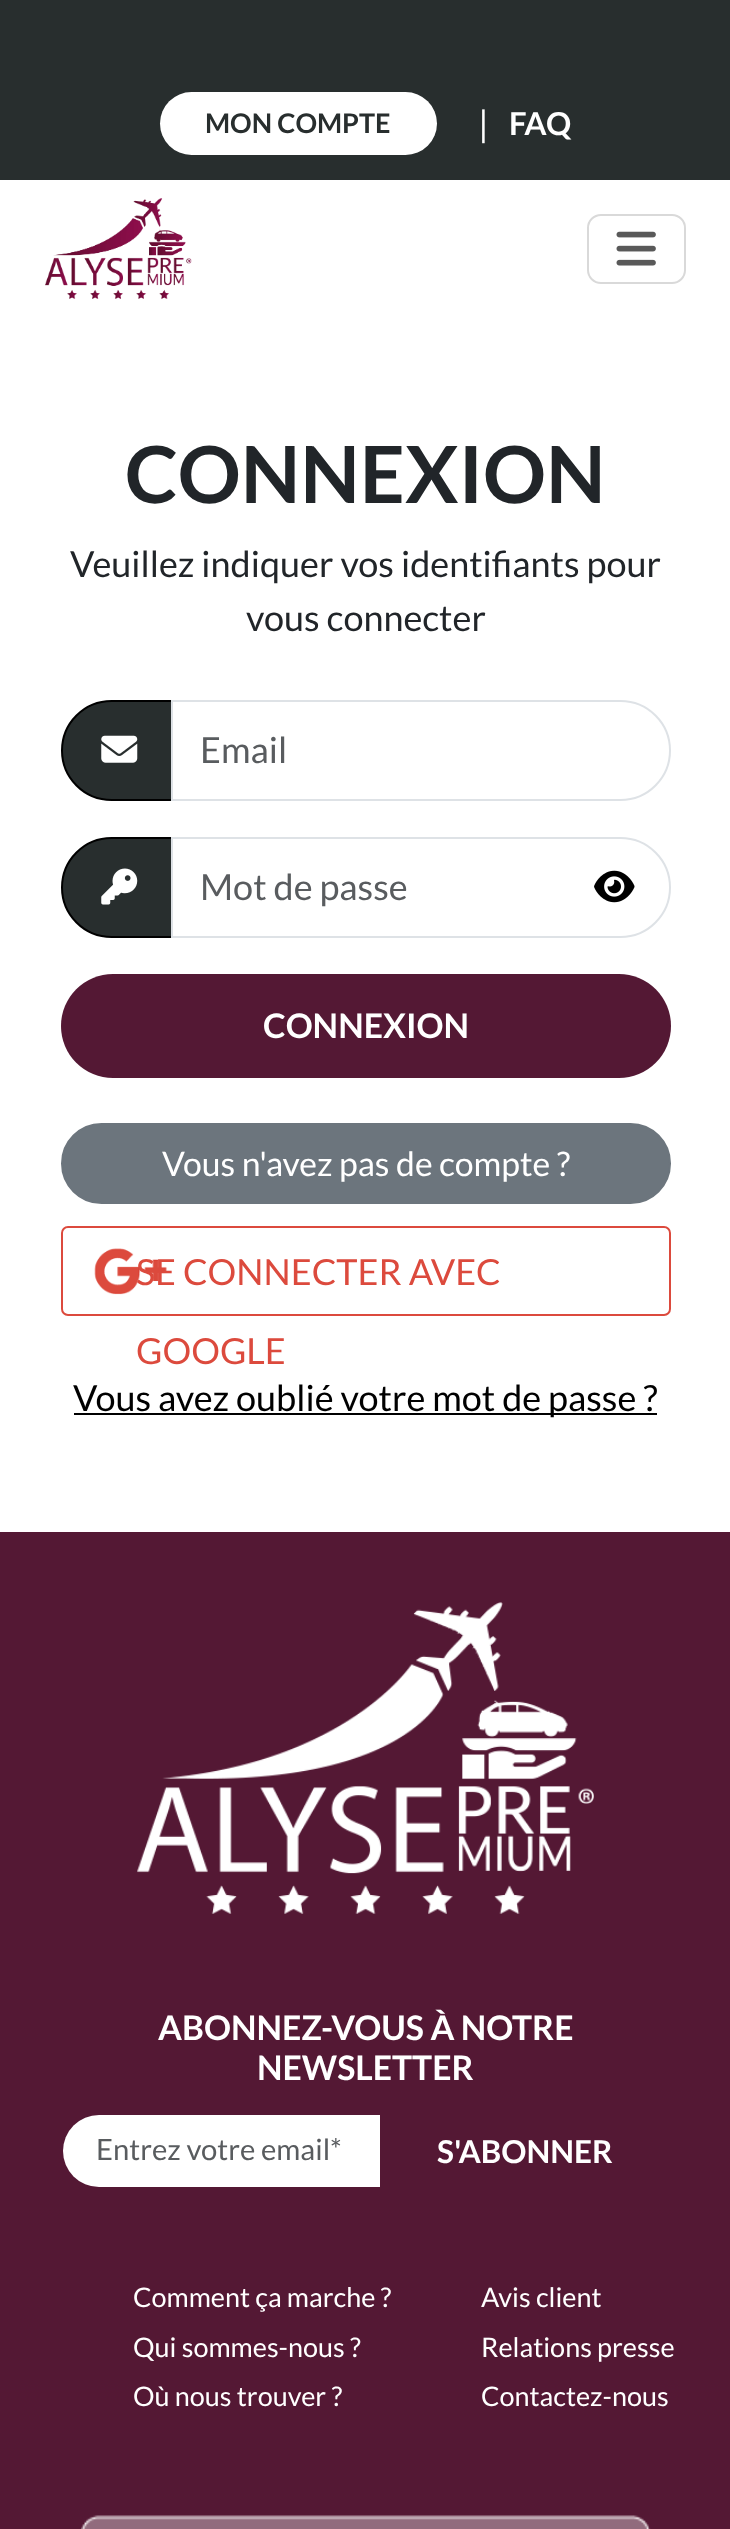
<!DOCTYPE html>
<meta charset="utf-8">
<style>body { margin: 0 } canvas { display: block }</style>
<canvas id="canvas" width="730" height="2529"></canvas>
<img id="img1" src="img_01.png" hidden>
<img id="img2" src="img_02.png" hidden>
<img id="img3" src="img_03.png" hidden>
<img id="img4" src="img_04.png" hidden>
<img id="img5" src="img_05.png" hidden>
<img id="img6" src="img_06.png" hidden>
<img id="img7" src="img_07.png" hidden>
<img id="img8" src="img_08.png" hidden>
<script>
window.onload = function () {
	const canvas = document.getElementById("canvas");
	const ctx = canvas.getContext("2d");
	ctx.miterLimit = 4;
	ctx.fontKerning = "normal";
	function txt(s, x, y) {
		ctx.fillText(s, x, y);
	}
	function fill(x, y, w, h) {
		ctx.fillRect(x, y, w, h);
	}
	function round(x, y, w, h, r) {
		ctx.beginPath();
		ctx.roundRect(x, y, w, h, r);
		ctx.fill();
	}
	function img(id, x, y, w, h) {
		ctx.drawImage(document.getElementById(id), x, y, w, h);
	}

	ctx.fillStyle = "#FFFFFF";
	fill(0, 0, 730, 2529);
	ctx.fillStyle = "#282E2E";
	fill(0, 0, 730, 180);
	ctx.fillStyle = "#FFFFFF";
	round(160, 92, 277, 63, 31.5);
	img("img1", 45, 198, 147, 101);
	ctx.beginPath();
	ctx.roundRect(588, 215, 97, 68, 13);
	ctx.strokeStyle = "#D9D9D9";
	ctx.lineWidth = 2;
	ctx.stroke();
	img("img2", 616, 231, 40, 35);
	ctx.fillStyle = "#282E2E";
	ctx.beginPath();
	ctx.roundRect(62, 701, 110, 99, [49.5, 0, 0, 49.5]);
	ctx.fill();
	ctx.strokeStyle = "#000000";
	ctx.stroke();
	img("img3", 101, 735, 37, 28);
	ctx.beginPath();
	ctx.roundRect(172, 701, 498, 99, [0, 49.5, 49.5, 0]);
	ctx.strokeStyle = "#DEE2E6";
	ctx.stroke();
	ctx.beginPath();
	ctx.roundRect(62, 838, 110, 99, [49.5, 0, 0, 49.5]);
	ctx.fill();
	ctx.strokeStyle = "#000000";
	ctx.stroke();
	img("img4", 101, 868, 37, 37);
	ctx.beginPath();
	ctx.roundRect(172, 838, 498, 99, [0, 49.5, 49.5, 0]);
	ctx.strokeStyle = "#DEE2E6";
	ctx.stroke();
	img("img5", 594, 870, 41, 33);
	ctx.fillStyle = "#541834";
	round(61, 974, 610, 104, 52);
	ctx.fillStyle = "#6C757D";
	ctx.beginPath();
	ctx.roundRect(62, 1124, 608, 79, 39.5);
	ctx.fill();
	ctx.strokeStyle = "#6C757D";
	ctx.stroke();
	img("img6", 94, 1248, 73, 47);
	ctx.beginPath();
	ctx.roundRect(62, 1227, 608, 88, 6);
	ctx.strokeStyle = "#DC4A3D";
	ctx.stroke();
	ctx.fillStyle = "#000000";
	fill(74, 1413, 583, 2);
	ctx.fillStyle = "#541834";
	fill(0, 1532, 730, 997);
	img("img7", 137, 1602, 457, 312);
	ctx.fillStyle = "#FFFFFF";
	ctx.beginPath();
	ctx.roundRect(63, 2115, 317, 72, [36, 0, 0, 36]);
	ctx.fill();
	img("img8", 81, 2515, 570, 14);
	ctx.font = "bold 27px Lato";
	ctx.fillStyle = "#282E2E";
	txt("MON COMPTE", 205, 133);
	ctx.font = "36px Lato";
	ctx.fillStyle = "#FFFFFF";
	txt("|", 478, 137);
	ctx.font = "bold 31.5px Lato";
	txt("FAQ", 509, 135);
	ctx.font = "bold 78.75px Lato";
	ctx.fillStyle = "#212529";
	txt("CONNEXION", 125, 503);
	ctx.font = "36px Lato";
	txt("Veuillez indiquer vos identifiants pour", 70, 577);
	txt("vous connecter", 246, 631);
	ctx.fillStyle = "#595C5F";
	txt("Email", 200, 763);
	txt("Mot de passe", 200, 900);
	ctx.font = "bold 33.75px Lato";
	ctx.fillStyle = "#FFFFFF";
	txt("CONNEXION", 263, 1038);
	ctx.font = "33.75px Lato";
	txt("Vous n'avez pas de compte ?", 162, 1176);
	ctx.font = "36px Lato";
	ctx.fillStyle = "#DC4A3D";
	txt("SE CONNECTER AVEC", 136, 1285);
	txt("GOOGLE", 136, 1364);
	ctx.fillStyle = "#000000";
	txt("Vous avez oublié votre mot de passe ?", 73, 1411);
	ctx.font = "bold 33.75px Lato";
	ctx.fillStyle = "#FFFFFF";
	txt("ABONNEZ-VOUS À NOTRE", 158, 2040);
	txt("NEWSLETTER", 257, 2080);
	ctx.font = "29.25px Lato";
	ctx.fillStyle = "#595C5F";
	txt("Entrez votre email*", 96, 2160);
	ctx.font = "bold 31.5px Lato";
	ctx.fillStyle = "#FFFFFF";
	txt("S'ABONNER", 437, 2163);
	ctx.font = "27px Lato";
	txt("Comment ça marche ?", 133, 2307);
	txt("Qui sommes-nous ?", 133, 2357);
	txt("Où nous trouver ?", 133, 2406);
	txt("Avis client", 481, 2307);
	txt("Relations presse", 481, 2357);
	txt("Contactez-nous", 481, 2406);
};
</script>
